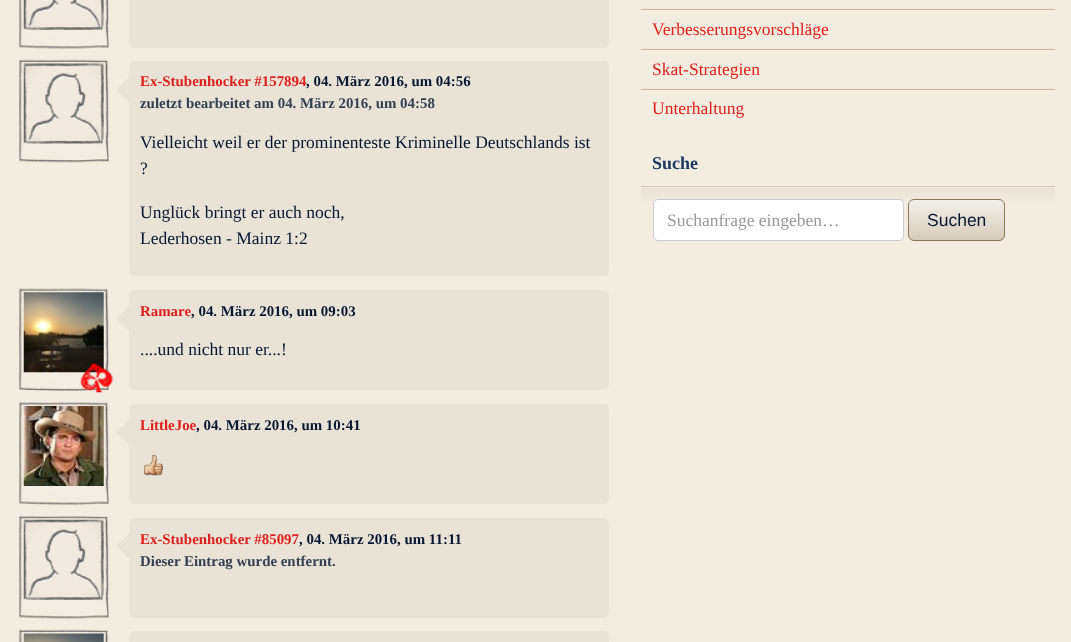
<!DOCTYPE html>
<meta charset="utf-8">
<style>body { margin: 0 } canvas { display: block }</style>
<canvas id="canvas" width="1071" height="642"></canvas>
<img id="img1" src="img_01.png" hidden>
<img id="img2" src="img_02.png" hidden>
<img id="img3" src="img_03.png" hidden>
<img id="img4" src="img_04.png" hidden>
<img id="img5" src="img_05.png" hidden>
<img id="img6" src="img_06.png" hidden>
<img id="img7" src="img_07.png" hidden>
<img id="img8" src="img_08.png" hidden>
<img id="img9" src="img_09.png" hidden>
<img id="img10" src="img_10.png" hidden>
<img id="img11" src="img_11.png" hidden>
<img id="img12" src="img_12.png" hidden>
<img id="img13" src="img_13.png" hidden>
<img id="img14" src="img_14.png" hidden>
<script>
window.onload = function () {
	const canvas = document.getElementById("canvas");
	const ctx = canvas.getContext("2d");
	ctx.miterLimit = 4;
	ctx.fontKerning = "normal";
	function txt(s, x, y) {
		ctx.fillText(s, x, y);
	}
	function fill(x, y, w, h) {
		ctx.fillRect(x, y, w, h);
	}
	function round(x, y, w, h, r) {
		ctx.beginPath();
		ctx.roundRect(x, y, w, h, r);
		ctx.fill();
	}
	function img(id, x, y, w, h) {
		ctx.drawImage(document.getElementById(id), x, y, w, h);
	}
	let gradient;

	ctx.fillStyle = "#F2ECE1";
	fill(0, 0, 1071, 642);
	img("img1", 19, 0, 90, 49);
	img("img2", 23, 0, 81, 30);
	ctx.fillStyle = "#E8E2D7";
	round(129, -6, 480, 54, 6);
	img("img3", 19, 59, 90, 104);
	img("img4", 23, 63, 81, 81);
	round(129, 61, 480, 215, 6);
	ctx.beginPath();
	ctx.moveTo(129, 77.5);
	ctx.lineTo(129, 102.5);
	ctx.lineTo(116, 90);
	ctx.closePath();
	ctx.fill();
	img("img5", 19, 288, 90, 103);
	img("img6", 23, 292, 81, 81);
	img("img7", 80, 363, 34, 30);
	round(129, 290, 480, 100, 6);
	ctx.beginPath();
	ctx.moveTo(129, 306);
	ctx.lineTo(129, 331);
	ctx.lineTo(116, 319);
	ctx.closePath();
	ctx.fill();
	img("img8", 19, 402, 90, 103);
	img("img9", 23, 406, 81, 80);
	round(129, 404, 480, 100, 6);
	ctx.beginPath();
	ctx.moveTo(129, 420);
	ctx.lineTo(129, 445);
	ctx.lineTo(116, 432.5);
	ctx.closePath();
	ctx.fill();
	img("img10", 144, 455, 19, 21);
	img("img11", 19, 516, 90, 103);
	img("img12", 23, 519, 81, 81);
	round(129, 518, 480, 100, 6);
	ctx.beginPath();
	ctx.moveTo(129, 534);
	ctx.lineTo(129, 559);
	ctx.lineTo(116, 546);
	ctx.closePath();
	ctx.fill();
	img("img13", 19, 629, 90, 13);
	img("img14", 23, 633, 81, 9);
	round(129, 631, 480, 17, 6);
	ctx.fillStyle = "#BFB19A";
	fill(641, 9, 414, 1);
	fill(641, 49, 414, 1);
	fill(641, 89, 414, 1);
	ctx.fillStyle = "#D3C9B6";
	fill(641, 186, 414, 1);
	gradient = ctx.createLinearGradient(848, 187, 848, 251);
	gradient.addColorStop(0, "#E8E2D7");
	gradient.addColorStop(0.3, "#F2ECE1");
	ctx.fillStyle = gradient;
	fill(641, 188, 414, 13);
	ctx.fillStyle = "#FFFFFF";
	ctx.beginPath();
	ctx.roundRect(653.5, 199.5, 250, 41, 4.5);
	ctx.fill();
	ctx.strokeStyle = "#CCCCCC";
	ctx.stroke();
	ctx.save();
	ctx.beginPath();
	ctx.roundRect(908, 199, 97, 42, 6);
	ctx.clip();
	gradient = ctx.createLinearGradient(956, 200, 956, 240);
	gradient.addColorStop(0, "#F3F0EB");
	gradient.addColorStop(1, "#D6CCBB");
	ctx.fillStyle = gradient;
	fill(908, 200, 97, 40);
	ctx.restore();
	ctx.beginPath();
	ctx.roundRect(908.5, 199.5, 96, 41, 5.5);
	ctx.strokeStyle = "#8C7653";
	ctx.stroke();
	ctx.font = "bold 14.9px Liberation Serif";
	ctx.fillStyle = "#DE1F1C";
	txt("Ex-Stubenhocker #157894", 140, 86);
	ctx.fillStyle = "#081731";
	txt(", 04. März 2016, um 04:56", 306, 86);
	ctx.fillStyle = "#354052";
	txt("zuletzt bearbeitet am 04. März 2016, um 04:58", 140, 108);
	ctx.font = "17.5px Liberation Serif";
	ctx.fillStyle = "#081731";
	txt("Vielleicht weil er der prominenteste Kriminelle Deutschlands ist", 140, 148);
	txt("?", 140, 174);
	txt("Unglück bringt er auch noch,", 140, 218);
	txt("Lederhosen - Mainz 1:2", 140, 244);
	ctx.font = "bold 14.9px Liberation Serif";
	ctx.fillStyle = "#DE1F1C";
	txt("Ramare", 140, 316);
	ctx.fillStyle = "#081731";
	txt(", 04. März 2016, um 09:03", 191, 316);
	ctx.font = "17.5px Liberation Serif";
	txt("....und nicht nur er...!", 140, 355);
	ctx.font = "bold 14.9px Liberation Serif";
	ctx.fillStyle = "#DE1F1C";
	txt("LittleJoe", 140, 430);
	ctx.fillStyle = "#081731";
	txt(", 04. März 2016, um 10:41", 196, 430);
	ctx.fillStyle = "#DE1F1C";
	txt("Ex-Stubenhocker #85097", 140, 544);
	ctx.fillStyle = "#081731";
	txt(", 04. März 2016, um 11:11", 299, 544);
	ctx.fillStyle = "#354052";
	txt("Dieser Eintrag wurde entfernt.", 140, 566);
	ctx.font = "17.5px Liberation Serif";
	ctx.fillStyle = "#DE1F1C";
	txt("Verbesserungsvorschläge", 652, 35);
	txt("Skat-Strategien", 652, 75);
	txt("Unterhaltung", 652, 114);
	ctx.font = "bold 18px Liberation Serif";
	ctx.fillStyle = "#1D3961";
	txt("Suche", 652, 169);
	ctx.font = "17.5px Liberation Serif";
	ctx.fillStyle = "#999999";
	txt("Suchanfrage eingeben…", 667, 226);
	ctx.font = "17.5px Liberation Sans";
	ctx.fillStyle = "#081731";
	txt("Suchen", 927, 226);
};
</script>
